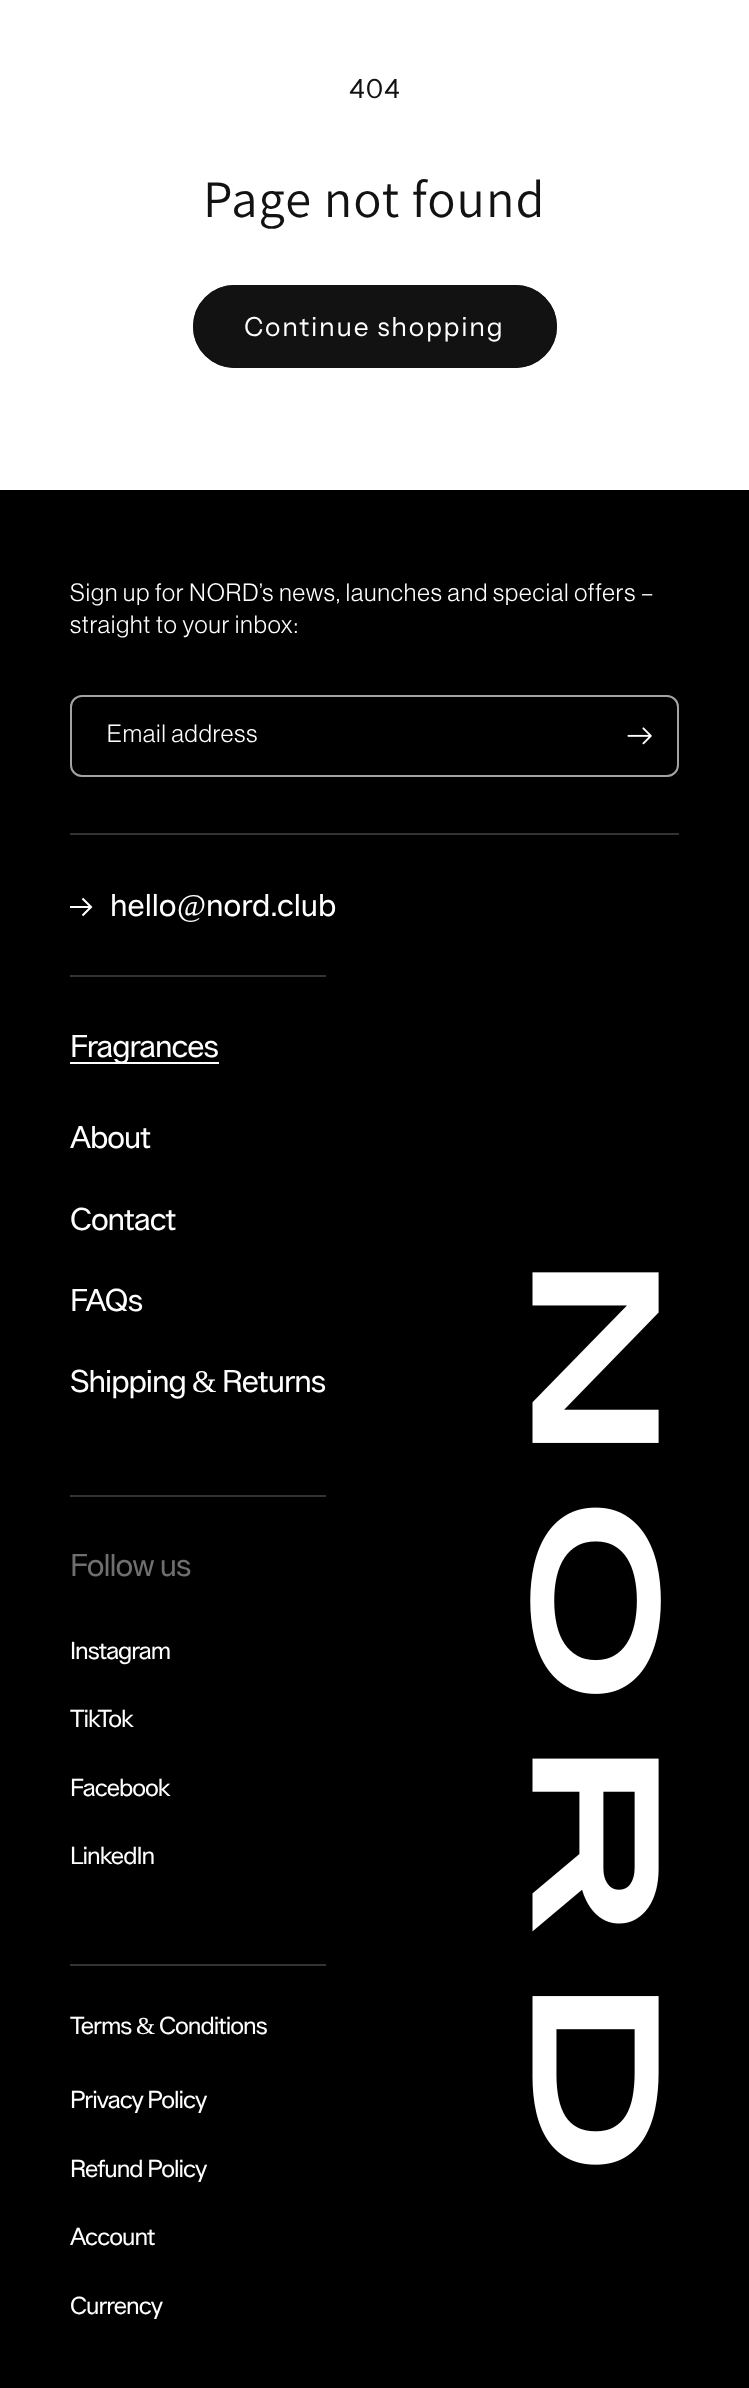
<!DOCTYPE html>
<meta charset="utf-8">
<style>body { margin: 0 } canvas { display: block }</style>
<canvas id="canvas" width="749" height="2388"></canvas>
<img id="img1" src="img_01.png" hidden>
<img id="img2" src="img_02.png" hidden>
<script>
window.onload = function () {
	const canvas = document.getElementById("canvas");
	const ctx = canvas.getContext("2d");
	ctx.miterLimit = 4;
	ctx.fontKerning = "normal";
	function txt(s, x, y) {
		ctx.fillText(s, x, y);
	}
	function fill(x, y, w, h) {
		ctx.fillRect(x, y, w, h);
	}
	function round(x, y, w, h, r) {
		ctx.beginPath();
		ctx.roundRect(x, y, w, h, r);
		ctx.fill();
	}
	function img(id, x, y, w, h) {
		ctx.drawImage(document.getElementById(id), x, y, w, h);
	}

	ctx.fillStyle = "#FFFFFF";
	fill(0, 0, 749, 2388);
	ctx.fillStyle = "#121212";
	round(193, 285, 364, 83, 41.5);
	ctx.beginPath();
	ctx.roundRect(194, 286, 362, 81, 40.5);
	ctx.strokeStyle = "#121212";
	ctx.lineWidth = 2;
	ctx.stroke();
	ctx.fillStyle = "#000000";
	fill(0, 490, 749, 1898);
	ctx.beginPath();
	ctx.roundRect(71, 696, 607, 80, 11);
	ctx.strokeStyle = "#333333";
	ctx.stroke();
	round(72, 697, 605, 78, 11);
	ctx.beginPath();
	ctx.roundRect(71, 696, 607, 80, 11);
	ctx.strokeStyle = "rgba(255, 255, 255, 0.55)";
	ctx.stroke();
	img("img1", 627, 727, 25, 18);
	ctx.fillStyle = "#333333";
	fill(70, 833, 609, 2);
	ctx.fillStyle = "#FFFFFF";
	fill(70, 906, 21, 2);
	ctx.beginPath();
	ctx.moveTo(82.5, 898.5);
	ctx.lineTo(91, 907);
	ctx.lineTo(82.5, 915.5);
	ctx.strokeStyle = "#FFFFFF";
	ctx.lineWidth = 2.1;
	ctx.stroke();
	ctx.fillStyle = "#333333";
	fill(70, 975, 256, 2);
	ctx.fillStyle = "#FFFFFF";
	fill(70, 1062, 149, 2);
	ctx.fillStyle = "#333333";
	fill(70, 1495, 256, 2);
	fill(70, 1964, 256, 2);
	img("img2", 530, 1272, 131, 893);
	ctx.letterSpacing = "1.05px";
	ctx.font = "26.25px Instrument Sans";
	ctx.fillStyle = "#121212";
	txt("404", 349, 98);
	ctx.font = "52.5px Assistant";
	txt("Page not found", 203, 217);
	ctx.letterSpacing = "1.75px";
	ctx.font = "26.25px Instrument Sans";
	ctx.fillStyle = "#FFFFFF";
	txt("Continue shopping", 244, 336);
	ctx.letterSpacing = "1.05px";
	ctx.font = "300 24.5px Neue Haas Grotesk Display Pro";
	txt("Sign up for NORD’s news, launches and special offers –", 70, 601);
	txt("straight to your inbox:", 70, 633);
	txt("Email address", 107, 742);
	ctx.letterSpacing = "0px";
	ctx.font = "31.5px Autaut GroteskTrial";
	txt("hello", 110, 916);
	ctx.font = "31.5px Liberation Serif";
	txt("@", 177, 916);
	ctx.font = "31.5px Autaut GroteskTrial";
	txt("nord.club", 206, 916);
	ctx.letterSpacing = "-1px";
	txt("Fragrances", 70, 1057);
	txt("About", 70, 1148);
	txt("Contact", 70, 1230);
	txt("FAQs", 70, 1311);
	txt("Shipping", 70, 1392);
	ctx.font = "31.5px Liberation Serif";
	txt("&", 192, 1392);
	ctx.font = "31.5px Autaut GroteskTrial";
	txt("Returns", 222, 1392);
	ctx.fillStyle = "#6F6F6F";
	txt("Follow us", 70, 1576);
	ctx.font = "24.5px Autaut GroteskTrial";
	ctx.fillStyle = "#FFFFFF";
	txt("Instagram", 70, 1659);
	txt("TikTok", 70, 1727);
	txt("Facebook", 70, 1796);
	txt("LinkedIn", 70, 1864);
	txt("Terms", 70, 2034);
	ctx.font = "24.5px Liberation Serif";
	txt("&", 136, 2034);
	ctx.font = "24.5px Autaut GroteskTrial";
	txt("Conditions", 159, 2034);
	txt("Privacy Policy", 70, 2108);
	txt("Refund Policy", 70, 2177);
	txt("Account", 70, 2245);
	txt("Currency", 70, 2314);
};
</script>
